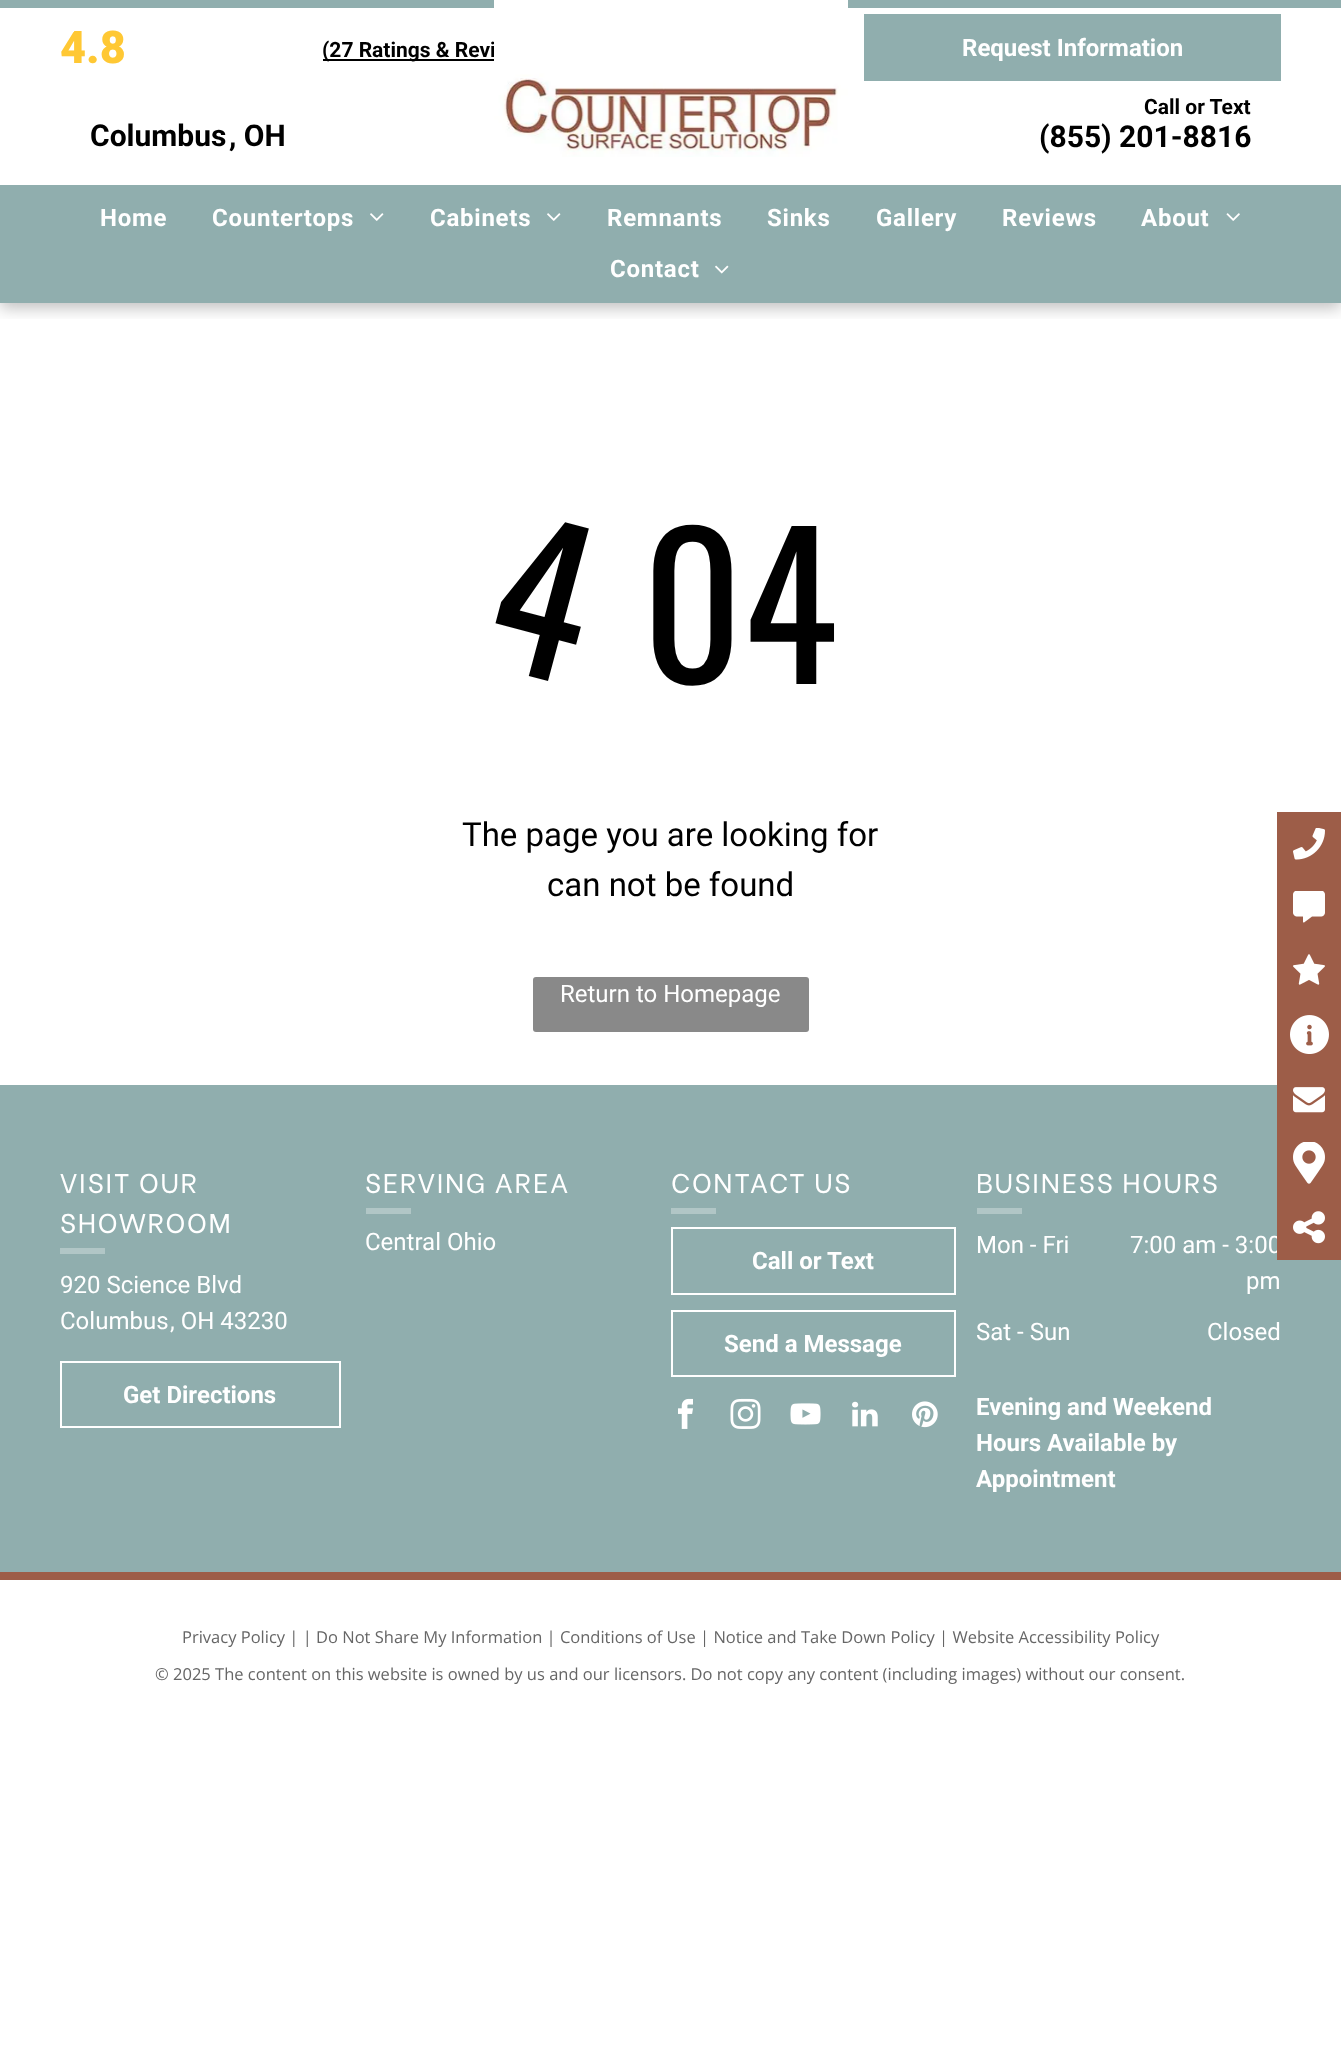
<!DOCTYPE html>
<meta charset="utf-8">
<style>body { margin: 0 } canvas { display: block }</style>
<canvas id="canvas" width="1341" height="2070"></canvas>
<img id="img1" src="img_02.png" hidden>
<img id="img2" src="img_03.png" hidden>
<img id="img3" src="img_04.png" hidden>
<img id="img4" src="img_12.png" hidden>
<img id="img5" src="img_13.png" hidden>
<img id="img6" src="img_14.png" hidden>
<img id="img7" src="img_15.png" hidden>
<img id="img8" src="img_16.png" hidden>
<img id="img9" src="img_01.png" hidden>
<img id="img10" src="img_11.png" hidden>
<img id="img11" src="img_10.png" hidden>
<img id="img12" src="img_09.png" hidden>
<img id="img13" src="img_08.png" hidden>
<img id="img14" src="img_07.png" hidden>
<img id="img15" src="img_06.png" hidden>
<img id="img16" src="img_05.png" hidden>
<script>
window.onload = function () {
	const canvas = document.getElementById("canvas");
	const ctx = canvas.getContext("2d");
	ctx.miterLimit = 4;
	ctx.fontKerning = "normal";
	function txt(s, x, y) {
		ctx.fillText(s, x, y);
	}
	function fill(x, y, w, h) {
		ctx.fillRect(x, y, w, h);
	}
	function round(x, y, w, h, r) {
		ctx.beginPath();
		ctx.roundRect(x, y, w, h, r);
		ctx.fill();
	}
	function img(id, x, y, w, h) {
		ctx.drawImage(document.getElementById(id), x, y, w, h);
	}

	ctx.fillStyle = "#FFFFFF";
	fill(0, 0, 1341, 2070);
	ctx.save();
	ctx.beginPath();
	ctx.rect(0, 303, 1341, 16);
	ctx.clip();
	ctx.fillStyle = "rgba(0, 0, 0, 0.25)";
	ctx.filter = "blur(8px)";
	ctx.beginPath();
	ctx.rect(0, 5, 1341, 303);
	ctx.fill();
	ctx.filter = "none";
	ctx.restore();
	ctx.fillStyle = "#90AEAE";
	fill(0, 0, 1341, 8);
	ctx.fillStyle = "#000000";
	fill(323, 59, 171, 2);
	ctx.fillStyle = "#90AEAE";
	fill(864, 14, 417, 67);
	fill(0, 185, 1341, 118);
	img("img1", 370, 213, 14, 8);
	img("img1", 547, 213, 14, 8);
	img("img2", 1226, 213, 14, 8);
	img("img3", 715, 265, 14, 9);
	ctx.fillStyle = "#898989";
	round(533, 977, 276, 55, 3);
	ctx.fillStyle = "#90AEAE";
	fill(0, 1085, 1341, 487);
	ctx.fillStyle = "#9D5D48";
	fill(0, 1572, 1341, 8);
	ctx.fillStyle = "#B1C6C6";
	fill(60, 1248, 45, 6);
	ctx.strokeStyle = "#FFFFFF";
	ctx.lineWidth = 2;
	ctx.strokeRect(61, 1362, 279, 65);
	fill(366, 1208, 45, 6);
	fill(671, 1208, 45, 6);
	ctx.strokeRect(672, 1228, 283, 66);
	ctx.strokeRect(672, 1311, 283, 65);
	img("img4", 678, 1398, 15, 31);
	img("img5", 730, 1398, 31, 31);
	img("img6", 790, 1403, 31, 22);
	img("img7", 852, 1401, 26, 26);
	img("img8", 912, 1401, 26, 27);
	fill(977, 1208, 45, 6);
	ctx.font = "900 45px Roboto";
	ctx.fillStyle = "#FFC834";
	txt("4.8", 60, 63);
	ctx.font = "bold 21px Roboto";
	ctx.fillStyle = "#000000";
	txt("(27 Ratings & Revi", 322, 57);
	ctx.font = "bold 24px Roboto";
	ctx.fillStyle = "#FFFFFF";
	txt("Request Information", 962, 56);
	ctx.font = "bold 30px Roboto";
	ctx.fillStyle = "#000000";
	txt("Columbus", 90, 146);
	txt(", OH", 229, 146);
	img("img9", 494, 0, 354, 157);
	ctx.font = "bold 21px Roboto";
	txt("Call or Text", 1144, 114);
	ctx.font = "bold 30px Roboto";
	txt("(855) 201-8816", 1039, 147);
	ctx.letterSpacing = "0.75px";
	ctx.font = "bold 24px Roboto";
	ctx.fillStyle = "#FFFFFF";
	txt("Home", 100, 226);
	txt("Countertops", 212, 226);
	txt("Cabinets", 430, 226);
	txt("Remnants", 607, 226);
	txt("Sinks", 767, 226);
	txt("Gallery", 876, 226);
	txt("Reviews", 1002, 226);
	txt("About", 1141, 226);
	txt("Contact", 610, 277);
	ctx.letterSpacing = "0px";
	ctx.font = "195px Oswald";
	ctx.fillStyle = "#000000";
	ctx.save();
	ctx.translate(477, 662);
	ctx.rotate(15 * Math.PI / 180);
	ctx.fillText("4", 0, 0);
	ctx.restore();
	txt("04", 642, 684);
	ctx.font = "33px Roboto";
	txt("The page you are looking for", 462, 846);
	txt("can not be found", 547, 896);
	ctx.font = "24px Roboto";
	ctx.fillStyle = "#FFFFFF";
	txt("Return to Homepage", 560, 1002);
	ctx.letterSpacing = "1.6px";
	ctx.font = "27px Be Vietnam";
	txt("VISIT OUR", 60, 1193);
	txt("SHOWROOM", 60, 1233);
	ctx.letterSpacing = "0px";
	ctx.font = "24px Roboto";
	txt("920 Science Blvd", 60, 1293);
	txt("Columbus", 60, 1329);
	txt(", OH 43230", 170, 1329);
	ctx.font = "bold 24px Roboto";
	txt("Get Directions", 123, 1403);
	ctx.letterSpacing = "1.6px";
	ctx.font = "27px Be Vietnam";
	txt("SERVING AREA", 365, 1193);
	ctx.letterSpacing = "0px";
	ctx.font = "24px Roboto";
	txt("Central Ohio", 365, 1250);
	ctx.letterSpacing = "1.6px";
	ctx.font = "27px Be Vietnam";
	txt("CONTACT US", 671, 1193);
	ctx.letterSpacing = "0px";
	ctx.font = "bold 24px Roboto";
	txt("Call or Text", 752, 1269);
	txt("Send a Message", 724, 1352);
	ctx.letterSpacing = "1.6px";
	ctx.font = "27px Be Vietnam";
	txt("BUSINESS HOURS", 976, 1193);
	ctx.letterSpacing = "0px";
	ctx.font = "24px Roboto";
	txt("Mon - Fri", 976, 1253);
	txt("7:00 am - 3:00", 1130, 1253);
	ctx.fillStyle = "#9D5D48";
	fill(1277, 812, 64, 448);
	img("img10", 1293, 1211, 32, 33);
	img("img11", 1293, 1142, 32, 42);
	img("img12", 1293, 1087, 32, 26);
	img("img13", 1290, 1015, 39, 39);
	img("img14", 1293, 954, 32, 31);
	img("img15", 1293, 891, 32, 32);
	img("img16", 1293, 828, 32, 32);
	ctx.fillStyle = "#FFFFFF";
	txt("pm", 1246, 1289);
	txt("Sat - Sun", 976, 1340);
	txt("Closed", 1207, 1340);
	ctx.font = "bold 24px Roboto";
	txt("Evening and Weekend", 976, 1415);
	txt("Hours Available by", 976, 1451);
	txt("Appointment", 976, 1487);
	ctx.font = "16.5px Open Sans";
	ctx.fillStyle = "#666666";
	txt("Privacy Policy | | Do Not Share My Information | Conditions of Use | Notice and Take Down Policy | Website Accessibility Policy", 182, 1643);
	txt("© 2025 The content on this website is owned by us and our licensors. Do not copy any content (including images) without our consent.", 155, 1680);
};
</script>
